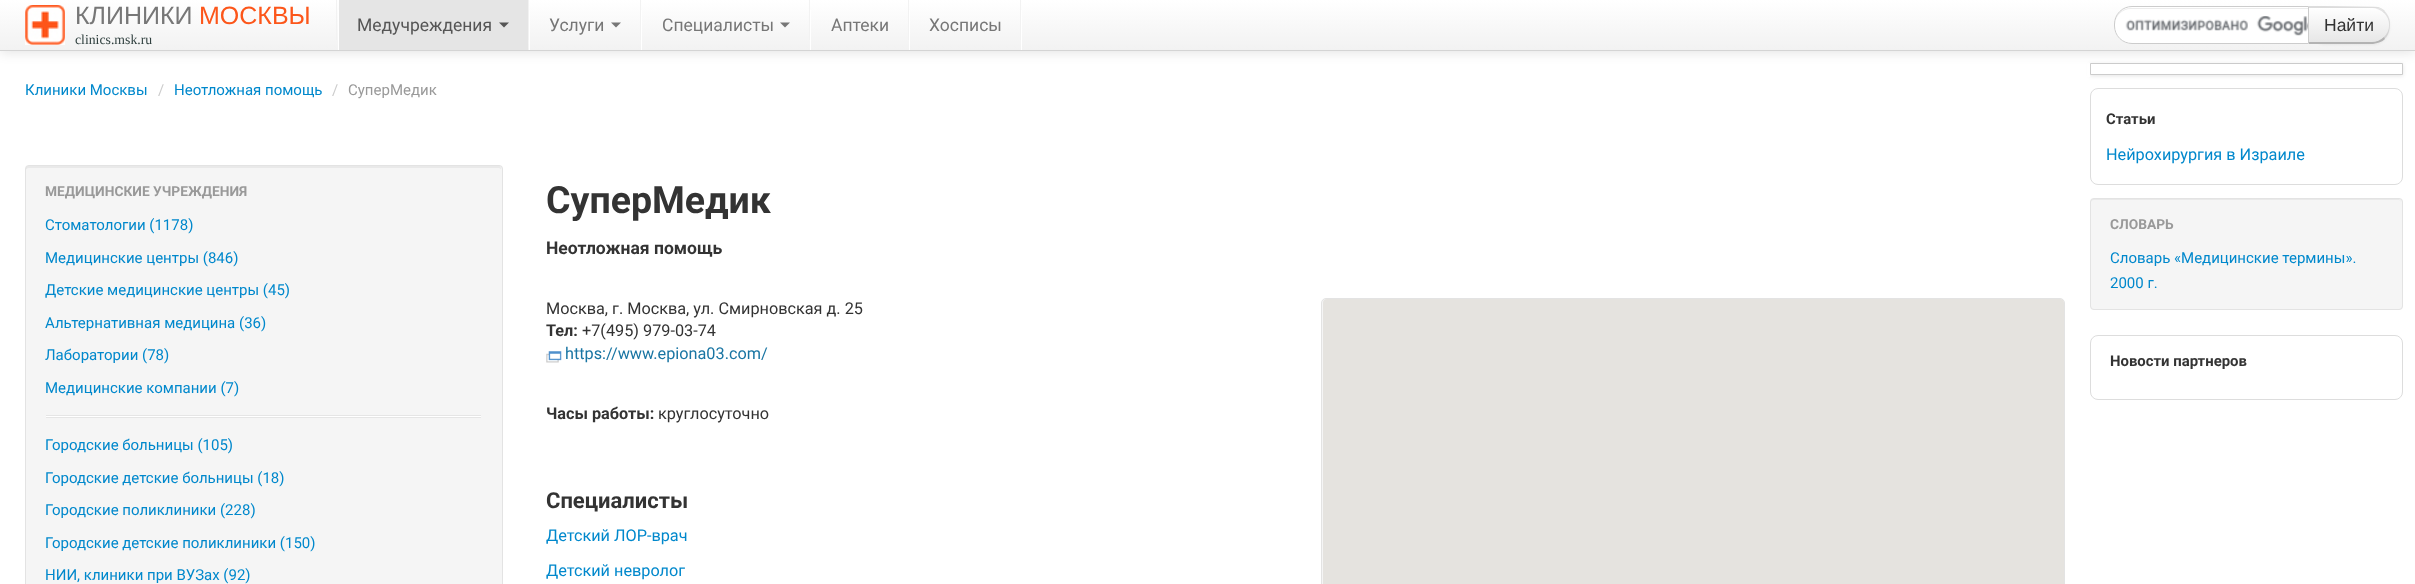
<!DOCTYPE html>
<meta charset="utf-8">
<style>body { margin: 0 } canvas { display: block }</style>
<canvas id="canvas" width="2415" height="584"></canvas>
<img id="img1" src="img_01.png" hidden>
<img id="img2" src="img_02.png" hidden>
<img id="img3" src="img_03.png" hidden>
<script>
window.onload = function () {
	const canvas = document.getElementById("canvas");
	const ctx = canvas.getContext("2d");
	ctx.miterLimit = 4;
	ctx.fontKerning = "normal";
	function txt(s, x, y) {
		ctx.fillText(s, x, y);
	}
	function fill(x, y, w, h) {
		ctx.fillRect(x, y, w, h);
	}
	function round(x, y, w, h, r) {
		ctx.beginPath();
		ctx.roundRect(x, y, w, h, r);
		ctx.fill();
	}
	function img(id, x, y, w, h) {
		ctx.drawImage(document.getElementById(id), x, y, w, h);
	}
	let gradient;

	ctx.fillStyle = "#FFFFFF";
	fill(0, 0, 2415, 584);
	ctx.fillStyle = "rgba(0, 0, 0, 0.1)";
	ctx.filter = "blur(2px)";
	ctx.beginPath();
	ctx.rect(2090, 64, 313, 12);
	ctx.fill();
	ctx.filter = "none";
	ctx.fillStyle = "#FFFFFF";
	fill(2087, 63, 3, 14);
	ctx.beginPath();
	ctx.rect(2090.5, 63.5, 312, 11);
	ctx.fill();
	ctx.strokeStyle = "#CCCCCC";
	ctx.stroke();
	ctx.fillStyle = "rgba(0, 0, 0, 0.1)";
	ctx.filter = "blur(6px)";
	ctx.beginPath();
	ctx.rect(0, 1, 2415, 52);
	ctx.fill();
	ctx.filter = "none";
	gradient = ctx.createLinearGradient(1208, 0, 1208, 50);
	gradient.addColorStop(0, "#FFFFFF");
	gradient.addColorStop(1, "#F2F2F2");
	ctx.fillStyle = gradient;
	fill(0, 0, 2415, 50);
	ctx.fillStyle = "#D4D4D4";
	fill(0, 50, 2415, 1);
	img("img1", 25, 5, 40, 40);
	ctx.fillStyle = "#FFFFFF";
	fill(338, 10, 1, 40);
	ctx.fillStyle = "#F2F2F2";
	fill(336, 0, 1, 40);
	ctx.fillStyle = "#E5E5E5";
	fill(339, 0, 189, 50);
	ctx.fillStyle = "#555555";
	ctx.beginPath();
	ctx.moveTo(499, 22.5);
	ctx.lineTo(509, 22.5);
	ctx.lineTo(504, 27.5);
	ctx.closePath();
	ctx.fill();
	ctx.fillStyle = "#FFFFFF";
	fill(529, 10, 1, 40);
	ctx.fillStyle = "#F2F2F2";
	fill(528, 0, 1, 40);
	ctx.fillStyle = "#777777";
	ctx.beginPath();
	ctx.moveTo(611, 22.5);
	ctx.lineTo(621, 22.5);
	ctx.lineTo(616, 27.5);
	ctx.closePath();
	ctx.fill();
	ctx.fillStyle = "#FFFFFF";
	fill(641, 10, 1, 40);
	ctx.fillStyle = "#F2F2F2";
	fill(640, 0, 1, 40);
	ctx.fillStyle = "#777777";
	ctx.beginPath();
	ctx.moveTo(780, 22.5);
	ctx.lineTo(790, 22.5);
	ctx.lineTo(785, 27.5);
	ctx.closePath();
	ctx.fill();
	ctx.fillStyle = "#FFFFFF";
	fill(810, 10, 1, 40);
	ctx.fillStyle = "#F2F2F2";
	fill(809, 0, 1, 40);
	ctx.fillStyle = "#FFFFFF";
	fill(909, 10, 1, 40);
	ctx.fillStyle = "#F2F2F2";
	fill(908, 0, 1, 40);
	ctx.fillStyle = "#FFFFFF";
	fill(1021, 10, 1, 40);
	ctx.fillStyle = "#F2F2F2";
	fill(1020, 0, 1, 40);
	ctx.fillStyle = "rgba(0, 0, 0, 0.05)";
	ctx.filter = "blur(1px)";
	ctx.beginPath();
	ctx.roundRect(2308, 8, 82, 37, 18);
	ctx.fill();
	ctx.filter = "none";
	ctx.fillStyle = "#F5F5F5";
	ctx.beginPath();
	ctx.roundRect(2308, 6, 82, 38, [0, 18, 18, 0]);
	ctx.fill();
	ctx.save();
	ctx.beginPath();
	ctx.roundRect(2308, 6, 82, 38, [0, 18, 18, 0]);
	ctx.clip();
	gradient = ctx.createLinearGradient(2349, 7.5, 2349, 43);
	gradient.addColorStop(0, "#FFFFFF");
	gradient.addColorStop(1, "#E6E6E6");
	ctx.fillStyle = gradient;
	fill(2309, 8, 81, 35);
	ctx.restore();
	ctx.fillStyle = "rgba(0, 0, 0, 0.1)";
	ctx.beginPath();
	ctx.moveTo(2308, 7);
	ctx.lineTo(2308, 6);
	ctx.lineTo(2325, 6);
	ctx.lineTo(2376, 7);
	ctx.bezierCurveTo(2380, 7, 2383, 9, 2385, 11);
	ctx.lineTo(2384, 13);
	ctx.bezierCurveTo(2381, 10, 2376, 8, 2372, 8);
	ctx.lineTo(2309, 8);
	ctx.closePath();
	ctx.fill();
	ctx.beginPath();
	ctx.moveTo(2390, 22);
	ctx.bezierCurveTo(2390, 28, 2389.5, 34.5, 2385, 38.5);
	ctx.lineTo(2383.5, 37.5);
	ctx.bezierCurveTo(2391, 31, 2391, 19, 2383.5, 12.5);
	ctx.lineTo(2385, 11.5);
	ctx.bezierCurveTo(2387.5, 14, 2389.5, 18, 2390, 22);
	ctx.closePath();
	ctx.fill();
	ctx.fillStyle = "#B3B3B3";
	ctx.beginPath();
	ctx.moveTo(2308, 44);
	ctx.lineTo(2309, 42);
	ctx.lineTo(2372, 42);
	ctx.bezierCurveTo(2376, 42, 2381, 40, 2384, 37);
	ctx.lineTo(2385, 39);
	ctx.bezierCurveTo(2382, 42, 2378, 43, 2373, 44);
	ctx.closePath();
	ctx.fill();
	ctx.fillStyle = "#FFFFFF";
	ctx.beginPath();
	ctx.roundRect(2114, 6, 195, 38, [18, 0, 0, 18]);
	ctx.fill();
	img("img2", 2125, 16, 183, 20);
	ctx.fillStyle = "#ECECEC";
	ctx.beginPath();
	ctx.moveTo(2131, 9);
	ctx.lineTo(2308, 9);
	ctx.lineTo(2308, 8);
	ctx.lineTo(2131, 8);
	ctx.bezierCurveTo(2122, 8, 2115, 15, 2115, 24);
	ctx.lineTo(2115, 25);
	ctx.bezierCurveTo(2115, 16, 2122, 9, 2131, 9);
	ctx.closePath();
	ctx.fill();
	ctx.beginPath();
	ctx.roundRect(2114.5, 6.5, 194, 37, [17.5, 0, 0, 17.5]);
	ctx.stroke();
	ctx.fillStyle = "#F5F5F5";
	round(25, 165, 478, 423, 4);
	ctx.fillStyle = "#E9E9E9";
	ctx.beginPath();
	ctx.moveTo(29, 168);
	ctx.lineTo(499, 168);
	ctx.bezierCurveTo(500, 168, 501, 169, 501, 170);
	ctx.bezierCurveTo(501, 168, 501, 166, 498, 166);
	ctx.lineTo(28, 166);
	ctx.lineTo(26, 167);
	ctx.lineTo(26, 170);
	ctx.bezierCurveTo(26, 169, 27, 168, 29, 168);
	ctx.closePath();
	ctx.fill();
	ctx.beginPath();
	ctx.roundRect(25.5, 165.5, 477, 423, 3.5);
	ctx.strokeStyle = "#E3E3E3";
	ctx.stroke();
	ctx.fillStyle = "#E5E5E5";
	fill(46, 415, 435, 3);
	ctx.fillStyle = "#FFFFFF";
	fill(46, 416, 435, 1);
	img("img3", 546, 351, 16, 12);
	ctx.fillStyle = "#F5F5F5";
	ctx.beginPath();
	ctx.roundRect(1321.5, 298.5, 743, 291, 4.5);
	ctx.fill();
	ctx.stroke();
	ctx.fillStyle = "#E5E3DF";
	round(1323, 299, 741, 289, 4);
	ctx.beginPath();
	ctx.roundRect(2090.5, 88.5, 312, 96, 7.5);
	ctx.strokeStyle = "#DDDDDD";
	ctx.stroke();
	ctx.fillStyle = "#F5F5F5";
	round(2090, 198, 313, 112, 4);
	ctx.fillStyle = "#E9E9E9";
	ctx.beginPath();
	ctx.moveTo(2094, 200);
	ctx.lineTo(2399, 200);
	ctx.bezierCurveTo(2400, 200, 2401, 201, 2401, 202);
	ctx.lineTo(2401, 201);
	ctx.lineTo(2399, 199);
	ctx.lineTo(2093, 199);
	ctx.bezierCurveTo(2091, 200, 2091, 201, 2091, 202);
	ctx.bezierCurveTo(2091, 201, 2092, 200, 2094, 200);
	ctx.closePath();
	ctx.fill();
	ctx.beginPath();
	ctx.roundRect(2090.5, 198.5, 312, 111, 3.5);
	ctx.strokeStyle = "#E3E3E3";
	ctx.stroke();
	ctx.beginPath();
	ctx.roundRect(2090.5, 335.5, 312, 64, 7.5);
	ctx.strokeStyle = "#DDDDDD";
	ctx.stroke();
	ctx.font = "25px Liberation Sans";
	ctx.fillStyle = "#777777";
	txt("КЛИНИКИ", 75, 24);
	ctx.fillStyle = "#FC561A";
	txt("МОСКВЫ", 199, 24);
	ctx.font = "13.75px Liberation Serif";
	ctx.fillStyle = "#30403F";
	txt("clinics.msk.ru", 75, 44);
	ctx.font = "17.5px Roboto";
	ctx.fillStyle = "#555555";
	txt("Медучреждения", 357, 31);
	ctx.fillStyle = "#777777";
	txt("Услуги", 549, 31);
	txt("Специалисты", 662, 31);
	txt("Аптеки", 831, 31);
	txt("Хосписы", 929, 31);
	ctx.font = "17.5px Liberation Sans";
	ctx.fillStyle = "#333333";
	txt("Найти", 2324, 31);
	ctx.font = "15px Roboto";
	ctx.fillStyle = "#0088CC";
	txt("Клиники Москвы", 25, 95);
	ctx.fillStyle = "#CCCCCC";
	txt("/", 158, 95);
	ctx.fillStyle = "#0088CC";
	txt("Неотложная помощь", 174, 95);
	ctx.fillStyle = "#CCCCCC";
	txt("/", 332, 95);
	ctx.fillStyle = "#999999";
	txt("СуперМедик", 348, 95);
	ctx.font = "bold 13.75px Roboto";
	txt("МЕДИЦИНСКИЕ УЧРЕЖДЕНИЯ", 45, 196);
	ctx.font = "15px Roboto";
	ctx.fillStyle = "#0088CC";
	txt("Стоматологии (1178)", 45, 230);
	txt("Медицинские центры (846)", 45, 263);
	txt("Детские медицинские центры (45)", 45, 295);
	txt("Альтернативная медицина (36)", 45, 328);
	txt("Лаборатории (78)", 45, 360);
	txt("Медицинские компании (7)", 45, 393);
	txt("Городские больницы (105)", 45, 450);
	txt("Городские детские больницы (18)", 45, 483);
	txt("Городские поликлиники (228)", 45, 515);
	txt("Городские детские поликлиники (150)", 45, 548);
	txt("НИИ, клиники при ВУЗах (92)", 45, 580);
	ctx.font = "bold 37.5px Roboto";
	ctx.fillStyle = "#333333";
	txt("СуперМедик", 546, 213);
	ctx.font = "bold 17.5px Roboto";
	txt("Неотложная помощь", 546, 254);
	ctx.font = "16.25px Roboto";
	txt("Москва, г. Москва, ул. Смирновская д. 25", 546, 314);
	ctx.font = "bold 16.25px Roboto";
	txt("Тел:", 546, 336);
	ctx.font = "16.25px Roboto";
	txt("+7(495) 979-03-74", 582, 336);
	ctx.fillStyle = "#1975A3";
	txt("https://www.epiona03.com/", 565, 359);
	ctx.font = "bold 16.25px Roboto";
	ctx.fillStyle = "#333333";
	txt("Часы работы:", 546, 419);
	ctx.font = "16.25px Roboto";
	txt("круглосуточно", 658, 419);
	ctx.font = "bold 22px Roboto";
	txt("Специалисты", 546, 508);
	ctx.font = "16.25px Roboto";
	ctx.fillStyle = "#0088CC";
	txt("Детский ЛОР-врач", 546, 541);
	txt("Детский невролог", 546, 576);
	ctx.font = "bold 14.9px Roboto";
	ctx.fillStyle = "#333333";
	txt("Статьи", 2106, 124);
	ctx.font = "16.25px Roboto";
	ctx.fillStyle = "#0088CC";
	txt("Нейрохирургия в Израиле", 2106, 160);
	ctx.font = "bold 13.75px Roboto";
	ctx.fillStyle = "#999999";
	txt("СЛОВАРЬ", 2110, 229);
	ctx.font = "15px Roboto";
	ctx.fillStyle = "#0088CC";
	txt("Словарь «Медицинские термины».", 2110, 263);
	txt("2000 г.", 2110, 288);
	ctx.font = "bold 14.9px Roboto";
	ctx.fillStyle = "#333333";
	txt("Новости партнеров", 2110, 366);
};
</script>
